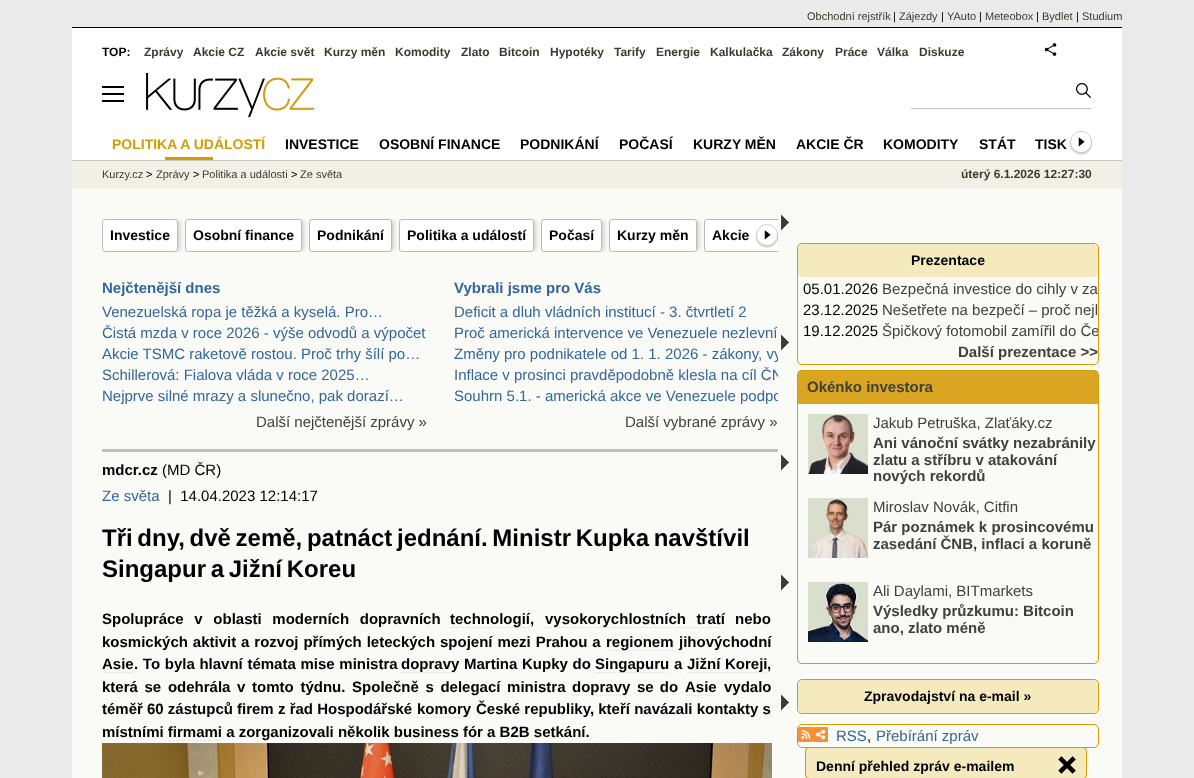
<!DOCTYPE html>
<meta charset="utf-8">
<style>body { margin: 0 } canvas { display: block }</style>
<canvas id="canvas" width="1194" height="778"></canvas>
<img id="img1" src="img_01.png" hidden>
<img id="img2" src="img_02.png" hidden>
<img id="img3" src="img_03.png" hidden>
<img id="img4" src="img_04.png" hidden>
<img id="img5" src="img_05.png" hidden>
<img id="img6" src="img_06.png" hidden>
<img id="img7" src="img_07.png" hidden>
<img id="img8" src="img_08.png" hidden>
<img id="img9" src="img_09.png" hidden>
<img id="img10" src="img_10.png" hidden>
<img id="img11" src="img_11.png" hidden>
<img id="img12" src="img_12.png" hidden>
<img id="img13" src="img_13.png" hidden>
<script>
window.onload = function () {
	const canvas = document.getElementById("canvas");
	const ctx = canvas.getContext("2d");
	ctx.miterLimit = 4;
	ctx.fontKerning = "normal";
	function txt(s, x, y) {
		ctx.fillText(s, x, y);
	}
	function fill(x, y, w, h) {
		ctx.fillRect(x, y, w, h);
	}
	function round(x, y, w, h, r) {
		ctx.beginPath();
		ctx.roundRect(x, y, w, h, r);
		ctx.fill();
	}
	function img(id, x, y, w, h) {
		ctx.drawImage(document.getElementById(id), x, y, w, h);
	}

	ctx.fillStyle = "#EAEAEA";
	fill(0, 0, 1194, 778);
	ctx.fillStyle = "#FAFBF7";
	fill(72, 189, 1050, 589);
	ctx.fillStyle = "#000000";
	fill(72, 27, 1050, 1);
	ctx.fillStyle = "#FFFFFF";
	fill(72, 28, 1050, 132);
	ctx.fillStyle = "#000000";
	fill(102, 86, 22, 2);
	img("img1", 146, 73, 168, 44);
	ctx.fillStyle = "#C0C0C0";
	fill(911, 108, 180, 1);
	img("img2", 1076, 83, 15, 15);
	ctx.fillStyle = "#000000";
	fill(102, 93, 22, 2);
	fill(102, 100, 22, 2);
	img("img3", 1044, 43, 13, 13);
	ctx.fillStyle = "#F2EFE6";
	fill(72, 161, 1050, 28);
	ctx.save();
	ctx.beginPath();
	ctx.rect(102, 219, 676, 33);
	ctx.clip();
	ctx.fillStyle = "#BBBBBB";
	ctx.filter = "blur(2.5px)";
	ctx.beginPath();
	ctx.roundRect(107, 221, 72, 29, 1);
	ctx.fill();
	ctx.filter = "none";
	ctx.restore();
	ctx.fillStyle = "#FFFFFF";
	ctx.beginPath();
	ctx.roundRect(102.5, 219.5, 75, 32, 2.5);
	ctx.fill();
	ctx.strokeStyle = "#BBBBBB";
	ctx.stroke();
	ctx.save();
	ctx.beginPath();
	ctx.rect(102, 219, 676, 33);
	ctx.clip();
	ctx.fillStyle = "#BBBBBB";
	ctx.filter = "blur(2.5px)";
	ctx.beginPath();
	ctx.roundRect(190, 221, 113, 29, 1);
	ctx.fill();
	ctx.filter = "none";
	ctx.restore();
	ctx.beginPath();
	ctx.roundRect(185.5, 219.5, 116, 32, 2.5);
	ctx.fill();
	ctx.stroke();
	ctx.save();
	ctx.beginPath();
	ctx.rect(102, 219, 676, 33);
	ctx.clip();
	ctx.fillStyle = "#BBBBBB";
	ctx.filter = "blur(2.5px)";
	ctx.beginPath();
	ctx.roundRect(314, 221, 79, 29, 1);
	ctx.fill();
	ctx.filter = "none";
	ctx.restore();
	ctx.beginPath();
	ctx.roundRect(309.5, 219.5, 82, 32, 2.5);
	ctx.fill();
	ctx.stroke();
	ctx.save();
	ctx.beginPath();
	ctx.rect(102, 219, 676, 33);
	ctx.clip();
	ctx.fillStyle = "#BBBBBB";
	ctx.filter = "blur(2.5px)";
	ctx.beginPath();
	ctx.roundRect(404, 221, 131, 29, 1);
	ctx.fill();
	ctx.filter = "none";
	ctx.restore();
	ctx.beginPath();
	ctx.roundRect(399.5, 219.5, 134, 32, 2.5);
	ctx.fill();
	ctx.stroke();
	ctx.save();
	ctx.beginPath();
	ctx.rect(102, 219, 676, 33);
	ctx.clip();
	ctx.fillStyle = "#BBBBBB";
	ctx.filter = "blur(2.5px)";
	ctx.beginPath();
	ctx.roundRect(546, 221, 57, 29, 1);
	ctx.fill();
	ctx.filter = "none";
	ctx.restore();
	ctx.beginPath();
	ctx.roundRect(541.5, 219.5, 60, 32, 2.5);
	ctx.fill();
	ctx.stroke();
	ctx.save();
	ctx.beginPath();
	ctx.rect(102, 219, 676, 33);
	ctx.clip();
	ctx.fillStyle = "#BBBBBB";
	ctx.filter = "blur(2.5px)";
	ctx.beginPath();
	ctx.roundRect(614, 221, 84, 29, 1);
	ctx.fill();
	ctx.filter = "none";
	ctx.restore();
	ctx.beginPath();
	ctx.roundRect(609.5, 219.5, 87, 32, 2.5);
	ctx.fill();
	ctx.stroke();
	ctx.beginPath();
	ctx.roundRect(704, 219, 74, 33, [3, 0, 0, 3]);
	ctx.fill();
	ctx.save();
	ctx.beginPath();
	ctx.rect(102, 219, 676, 33);
	ctx.clip();
	ctx.beginPath();
	ctx.roundRect(704.5, 219.5, 76, 32, 2.5);
	ctx.stroke();
	ctx.restore();
	img("img4", 755, 224, 23, 24);
	ctx.fillStyle = "#C0C0C0";
	fill(102, 449, 676, 3);
	ctx.beginPath();
	ctx.moveTo(450, 627.5);
	ctx.lineTo(530, 627.5);
	ctx.strokeStyle = "#DDDDDD";
	ctx.setLineDash([1, 1]);
	ctx.stroke();
	ctx.beginPath();
	ctx.moveTo(545, 627.5);
	ctx.lineTo(725, 627.5);
	ctx.stroke();
	ctx.beginPath();
	ctx.moveTo(606, 650.5);
	ctx.lineTo(674, 650.5);
	ctx.stroke();
	ctx.beginPath();
	ctx.moveTo(102, 672.5);
	ctx.lineTo(134, 672.5);
	ctx.stroke();
	ctx.beginPath();
	ctx.moveTo(401, 672.5);
	ctx.lineTo(459, 672.5);
	ctx.stroke();
	ctx.beginPath();
	ctx.moveTo(595, 672.5);
	ctx.lineTo(669, 672.5);
	ctx.stroke();
	ctx.beginPath();
	ctx.moveTo(687, 672.5);
	ctx.lineTo(767, 672.5);
	ctx.stroke();
	ctx.beginPath();
	ctx.moveTo(572, 695.5);
	ctx.lineTo(631, 695.5);
	ctx.stroke();
	ctx.beginPath();
	ctx.moveTo(685, 695.5);
	ctx.lineTo(717, 695.5);
	ctx.stroke();
	ctx.beginPath();
	ctx.moveTo(237, 717.5);
	ctx.lineTo(274, 717.5);
	ctx.stroke();
	ctx.beginPath();
	ctx.moveTo(417, 717.5);
	ctx.lineTo(471, 717.5);
	ctx.stroke();
	img("img5", 102, 743, 670, 35);
	img("img6", 781, 215, 9, 495);
	ctx.beginPath();
	ctx.roundRect(797.5, 243.5, 301, 121, 4.5);
	ctx.strokeStyle = "#D49C01";
	ctx.setLineDash([]);
	ctx.stroke();
	ctx.fillStyle = "#F4EABD";
	round(798, 244, 300, 33, 5);
	ctx.beginPath();
	ctx.roundRect(797.5, 370.5, 301, 293, 4.5);
	ctx.stroke();
	ctx.fillStyle = "#DAA520";
	fill(798, 371, 300, 33);
	img("img7", 808, 414, 60, 60);
	img("img8", 808, 498, 60, 60);
	img("img9", 808, 582, 60, 60);
	ctx.beginPath();
	ctx.roundRect(797.5, 679.5, 301, 34, 4.5);
	ctx.stroke();
	ctx.fillStyle = "#F4EABD";
	round(798, 680, 300, 33, 5);
	ctx.beginPath();
	ctx.roundRect(797.5, 724.5, 301, 23, 4.5);
	ctx.stroke();
	img("img10", 798, 727, 15, 15);
	img("img11", 813, 727, 15, 15);
	ctx.fillStyle = "#C5C6BD";
	fill(72, 160, 1050, 1);
	ctx.fillStyle = "#D49C01";
	fill(165, 157, 48, 3);
	img("img12", 1069, 131, 23, 24);
	ctx.fillStyle = "#F4EABD";
	ctx.beginPath();
	ctx.roundRect(805.5, 747.5, 281, 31, 3.5);
	ctx.fill();
	ctx.stroke();
	img("img13", 1058, 756, 18, 18);
	ctx.font = "11px Liberation Sans";
	ctx.fillStyle = "#393C31";
	txt("Obchodní rejstřík", 807, 20);
	ctx.fillStyle = "#000000";
	txt("|", 893, 20);
	ctx.fillStyle = "#393C31";
	txt("Zájezdy", 899, 20);
	ctx.fillStyle = "#000000";
	txt("|", 941, 20);
	ctx.fillStyle = "#393C31";
	txt("YAuto", 947, 20);
	ctx.fillStyle = "#000000";
	txt("|", 979, 20);
	ctx.fillStyle = "#393C31";
	txt("Meteobox", 985, 20);
	ctx.fillStyle = "#000000";
	txt("|", 1036, 20);
	ctx.fillStyle = "#393C31";
	txt("Bydlet", 1042, 20);
	ctx.fillStyle = "#000000";
	txt("|", 1076, 20);
	ctx.fillStyle = "#393C31";
	txt("Studium", 1082, 20);
	ctx.font = "bold 12px Liberation Sans";
	ctx.fillStyle = "#000000";
	txt("TOP:", 102, 56);
	ctx.fillStyle = "#393C31";
	txt("Zprávy", 144, 56);
	txt("Akcie CZ", 193, 56);
	txt("Akcie svět", 255, 56);
	txt("Kurzy měn", 324, 56);
	txt("Komodity", 395, 56);
	txt("Zlato", 461, 56);
	txt("Bitcoin", 499, 56);
	txt("Hypotéky", 550, 56);
	txt("Tarify", 614, 56);
	txt("Energie", 656, 56);
	txt("Kalkulačka", 710, 56);
	txt("Zákony", 782, 56);
	txt("Práce", 835, 56);
	txt("Válka", 877, 56);
	txt("Diskuze", 919, 56);
	ctx.font = "11px Liberation Sans";
	txt("Kurzy.cz", 102, 178);
	ctx.fillStyle = "#000000";
	txt(">", 146, 178);
	ctx.fillStyle = "#393C31";
	txt("Zprávy", 156, 178);
	ctx.fillStyle = "#000000";
	txt(">", 193, 178);
	ctx.fillStyle = "#393C31";
	txt("Politika a události", 202, 178);
	ctx.fillStyle = "#000000";
	txt(">", 291, 178);
	ctx.fillStyle = "#393C31";
	txt("Ze světa", 300, 178);
	ctx.font = "bold 12px Liberation Sans";
	txt("úterý 6.1.2026 12:27:30", 961, 178);
	ctx.font = "bold 14px Liberation Sans";
	ctx.fillStyle = "#000000";
	txt("Investice", 110, 240);
	txt("Osobní finance", 193, 240);
	txt("Podnikání", 317, 240);
	txt("Politika a událostí", 407, 240);
	txt("Počasí", 549, 240);
	txt("Kurzy měn", 617, 240);
	txt("Akcie", 712, 240);
	ctx.font = "bold 15px Liberation Sans";
	ctx.fillStyle = "#336699";
	txt("Nejčtenější dnes", 102, 293);
	ctx.font = "15px Liberation Sans";
	txt("Venezuelská ropa je těžká a kyselá. Pro…", 102, 317);
	txt("Čistá mzda v roce 2026 - výše odvodů a výpočet", 102, 338);
	txt("Akcie TSMC raketově rostou. Proč trhy šílí po…", 102, 359);
	txt("Schillerová: Fialova vláda v roce 2025…", 102, 380);
	txt("Nejprve silné mrazy a slunečno, pak dorazí…", 102, 401);
	ctx.fillStyle = "#40413B";
	txt("Další nejčtenější zprávy »", 256, 427);
	ctx.font = "bold 15px Liberation Sans";
	ctx.fillStyle = "#336699";
	txt("Vybrali jsme pro Vás", 454, 293);
	ctx.font = "15px Liberation Sans";
	txt("Deficit a dluh vládních institucí - 3. čtvrtletí 2", 454, 317);
	txt("Proč americká intervence ve Venezuele nezlevní", 454, 338);
	ctx.save();
	ctx.beginPath();
	ctx.rect(454, 277, 324, 155);
	ctx.clip();
	txt("Změny pro podnikatele od 1. 1. 2026 - zákony, vy", 454, 359);
	txt("Inflace v prosinci pravděpodobně klesla na cíl ČN", 454, 380);
	txt("Souhrn 5.1. - americká akce ve Venezuele podpo", 454, 401);
	ctx.restore();
	ctx.fillStyle = "#40413B";
	txt("Další vybrané zprávy »", 625, 427);
	ctx.font = "bold 15px Liberation Sans";
	ctx.fillStyle = "#000000";
	txt("mdcr.cz", 102, 475);
	ctx.font = "15px Liberation Sans";
	txt("(MD ČR)", 162, 475);
	ctx.fillStyle = "#336699";
	txt("Ze světa", 102, 501);
	ctx.fillStyle = "#000000";
	txt("|  14.04.2023 12:14:17", 168, 501);
	ctx.wordSpacing = "-2px";
	ctx.font = "bold 24px Liberation Sans";
	txt("Tři dny, dvě země, patnáct jednání. Ministr Kupka navštívil", 102, 546);
	txt("Singapur a Jižní Koreu", 102, 577);
	ctx.wordSpacing = "6.5px";
	ctx.font = "bold 15px Liberation Sans";
	txt("Spolupráce v oblasti moderních dopravních", 102, 624);
	ctx.wordSpacing = "0px";
	txt("technologií,", 450, 624);
	ctx.wordSpacing = "6.5px";
	txt("vysokorychlostních tratí", 545, 624);
	ctx.wordSpacing = "0px";
	txt("nebo", 735, 624);
	ctx.wordSpacing = "0.75px";
	txt("kosmických aktivit a rozvoj přímých leteckých spojení mezi Prahou a", 102, 647);
	ctx.wordSpacing = "0px";
	txt("regionem", 606, 647);
	txt("jihovýchodní", 679, 647);
	txt("Asie", 102, 669);
	ctx.wordSpacing = "0.5px";
	txt(". To byla hlavní témata mise ministra", 134, 669);
	ctx.wordSpacing = "0px";
	txt("dopravy", 401, 669);
	ctx.wordSpacing = "0.5px";
	txt("Martina Kupky do", 464, 669);
	ctx.wordSpacing = "0px";
	txt("Singapuru", 595, 669);
	txt("a", 674, 669);
	ctx.wordSpacing = "0.5px";
	txt("Jižní Koreji", 687, 669);
	ctx.wordSpacing = "0px";
	txt(",", 767, 669);
	ctx.wordSpacing = "2.5px";
	txt("která se odehrála v tomto týdnu. Společně s delegací ministra", 102, 692);
	ctx.wordSpacing = "0px";
	txt("dopravy", 572, 692);
	ctx.wordSpacing = "2px";
	txt("se do", 637, 692);
	ctx.wordSpacing = "0px";
	txt("Asie", 685, 692);
	txt("vydalo", 724, 692);
	txt("téměř 60 zástupců", 102, 714);
	txt("firem", 237, 714);
	txt("z řad Hospodářské", 278, 714);
	txt("komory", 417, 714);
	txt("České republiky, kteří navázali kontakty s", 476, 714);
	txt("místními firmami a zorganizovali několik business fór a B2B setkání.", 102, 737);
	ctx.beginPath();
	ctx.moveTo(168, 740.5);
	ctx.lineTo(222, 740.5);
	ctx.strokeStyle = "#DDDDDD";
	ctx.setLineDash([1, 1]);
	ctx.stroke();
	ctx.font = "bold 14px Liberation Sans";
	txt("Prezentace", 911, 265);
	ctx.font = "15px Liberation Sans";
	txt("05.01.2026", 803, 294);
	ctx.fillStyle = "#40413B";
	txt("Bezpečná investice do cihly v za", 882, 294);
	ctx.fillStyle = "#000000";
	txt("23.12.2025", 803, 315);
	ctx.fillStyle = "#40413B";
	txt("Nešetřete na bezpečí – proč nejl", 882, 315);
	ctx.fillStyle = "#000000";
	txt("19.12.2025", 803, 336);
	ctx.save();
	ctx.beginPath();
	ctx.rect(798, 322, 300, 18);
	ctx.clip();
	ctx.fillStyle = "#40413B";
	txt("Špičkový fotomobil zamířil do Če", 882, 336);
	ctx.restore();
	ctx.font = "bold 15px Liberation Sans";
	ctx.fillStyle = "#40413B";
	txt("Další prezentace >>", 958, 357);
	txt("Okénko investora", 807, 392);
	ctx.font = "15px Liberation Sans";
	txt("Jakub Petruška, Zlaťáky.cz", 873, 428);
	ctx.font = "bold 15px Liberation Sans";
	txt("Ani vánoční svátky nezabránily", 873, 448);
	txt("zlatu a stříbru v atakování", 873, 465);
	txt("nových rekordů", 873, 481);
	ctx.font = "15px Liberation Sans";
	txt("Miroslav Novák, Citfin", 873, 512);
	ctx.font = "bold 15px Liberation Sans";
	txt("Pár poznámek k prosincovému", 873, 532);
	txt("zasedání ČNB, inflaci a koruně", 873, 549);
	ctx.font = "15px Liberation Sans";
	txt("Ali Daylami, BITmarkets", 873, 596);
	ctx.font = "bold 15px Liberation Sans";
	txt("Výsledky průzkumu: Bitcoin", 873, 616);
	txt("ano, zlato méně", 873, 633);
	ctx.font = "bold 14px Liberation Sans";
	ctx.fillStyle = "#000000";
	txt("Zpravodajství na e-mail »", 864, 701);
	ctx.font = "15px Liberation Sans";
	ctx.fillStyle = "#336699";
	txt("RSS", 836, 741);
	ctx.fillStyle = "#000000";
	txt(",", 867, 741);
	ctx.fillStyle = "#336699";
	txt("Přebírání zpráv", 876, 741);
	ctx.font = "bold 14px Liberation Sans";
	ctx.fillStyle = "#D49C01";
	txt("POLITIKA A UDÁLOSTÍ", 112, 149);
	ctx.fillStyle = "#000000";
	txt("INVESTICE", 285, 149);
	txt("OSOBNÍ FINANCE", 379, 149);
	txt("PODNIKÁNÍ", 520, 149);
	txt("POČASÍ", 619, 149);
	txt("KURZY MĚN", 693, 149);
	txt("AKCIE ČR", 796, 149);
	txt("KOMODITY", 883, 149);
	txt("STÁT", 979, 149);
	txt("TISK", 1035, 149);
	txt("Denní přehled zpráv e-mailem", 816, 771);
};
</script>
